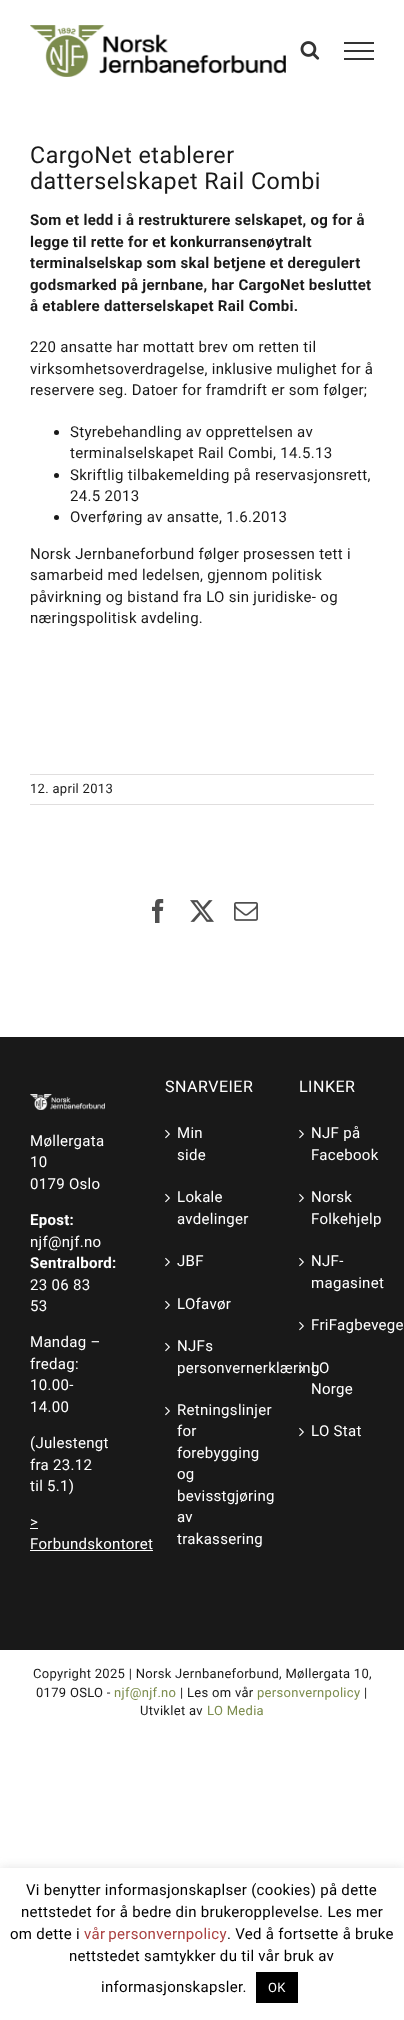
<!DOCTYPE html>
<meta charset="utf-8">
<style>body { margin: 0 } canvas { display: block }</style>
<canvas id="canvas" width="404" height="2020"></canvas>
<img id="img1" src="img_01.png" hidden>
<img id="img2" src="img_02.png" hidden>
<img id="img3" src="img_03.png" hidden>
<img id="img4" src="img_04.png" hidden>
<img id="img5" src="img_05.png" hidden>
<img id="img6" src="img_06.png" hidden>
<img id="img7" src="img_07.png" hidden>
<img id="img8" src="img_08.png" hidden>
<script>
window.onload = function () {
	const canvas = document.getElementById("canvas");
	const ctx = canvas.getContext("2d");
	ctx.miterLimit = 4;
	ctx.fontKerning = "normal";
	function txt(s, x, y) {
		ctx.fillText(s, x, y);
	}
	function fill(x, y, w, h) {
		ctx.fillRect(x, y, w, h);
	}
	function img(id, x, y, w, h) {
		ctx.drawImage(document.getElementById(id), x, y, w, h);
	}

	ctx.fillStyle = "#FFFFFF";
	fill(0, 0, 404, 2020);
	img("img1", 30, 25, 256, 52);
	img("img2", 300, 41, 20, 19);
	ctx.fillStyle = "#333333";
	fill(344, 42, 30, 2);
	fill(344, 50, 30, 2);
	fill(344, 58, 30, 2);
	ctx.fillStyle = "#191919";
	ctx.beginPath();
	ctx.arc(56.5, 432.5, 2.5, 0, Math.PI * 2);
	ctx.fill();
	ctx.beginPath();
	ctx.arc(56.5, 475.5, 2.5, 0, Math.PI * 2);
	ctx.fill();
	ctx.beginPath();
	ctx.arc(56.5, 517.5, 2.5, 0, Math.PI * 2);
	ctx.fill();
	ctx.fillStyle = "#E0DEDE";
	fill(30, 774, 344, 1);
	fill(30, 804, 344, 1);
	img("img3", 152, 899, 12, 24);
	img("img4", 190, 900, 24, 22);
	img("img5", 234, 902, 24, 19);
	ctx.fillStyle = "#191919";
	fill(0, 1037, 404, 613);
	img("img6", 30, 1094, 75, 16);
	ctx.fillStyle = "#FFFFFF";
	fill(30, 1528, 8, 1);
	fill(30, 1550, 123, 1);
	img("img7", 165, 1129, 5, 10);
	img("img7", 165, 1193, 5, 10);
	img("img7", 165, 1257, 5, 10);
	img("img7", 165, 1300, 5, 10);
	img("img7", 165, 1342, 5, 10);
	img("img7", 165, 1406, 5, 10);
	img("img7", 299, 1129, 5, 10);
	img("img7", 299, 1193, 5, 10);
	img("img7", 299, 1257, 5, 10);
	img("img7", 299, 1321, 5, 10);
	img("img7", 299, 1427, 5, 10);
	ctx.fillStyle = "rgba(172, 171, 171, 0.3)";
	ctx.filter = "blur(5px)";
	ctx.beginPath();
	ctx.rect(0, 1867, 404, 152);
	ctx.fill();
	ctx.filter = "none";
	ctx.fillStyle = "#FFFFFF";
	fill(0, 1868, 404, 152);
	ctx.fillStyle = "#000000";
	fill(256, 1972, 42, 31);
	ctx.letterSpacing = "0.5px";
	ctx.font = "23.25px Roboto";
	ctx.fillStyle = "#191919";
	txt("CargoNet etablerer", 30, 163);
	txt("datterselskapet Rail Combi", 30, 189);
	ctx.letterSpacing = "0.3px";
	ctx.font = "bold 15px Roboto";
	txt("Som et ledd i å restrukturere selskapet, og for å", 30, 225);
	txt("legge til rette for et konkurransenøytralt", 30, 247);
	txt("terminalselskap som skal betjene et deregulert", 30, 268);
	txt("godsmarked på jernbane, har CargoNet besluttet", 30, 290);
	txt("å etablere datterselskapet Rail Combi.", 30, 311);
	ctx.font = "15px Roboto";
	txt("220 ansatte har mottatt brev om retten til", 30, 352);
	txt("virksomhetsoverdragelse, inklusive mulighet for å", 30, 374);
	txt("reservere seg. Datoer for framdrift er som følger;", 30, 395);
	txt("Styrebehandling av opprettelsen av", 70, 437);
	txt("terminalselskapet Rail Combi, 14.5.13", 70, 458);
	txt("Skriftlig tilbakemelding på reservasjonsrett,", 70, 480);
	txt("24.5 2013", 70, 501);
	txt("Overføring av ansatte, 1.6.2013", 70, 522);
	txt("Norsk Jernbaneforbund følger prosessen tett i", 30, 559);
	txt("samarbeid med ledelsen, gjennom politisk", 30, 580);
	txt("påvirkning og bistand fra LO sin juridiske- og", 30, 602);
	txt("næringspolitisk avdeling.", 30, 623);
	ctx.font = "13px Roboto";
	txt("12. april 2013", 30, 793);
	ctx.font = "15px Roboto";
	ctx.fillStyle = "#FFFFFF";
	txt("Møllergata", 30, 1146);
	txt("10", 30, 1167);
	txt("0179 Oslo", 30, 1189);
	ctx.font = "bold 15px Roboto";
	txt("Epost:", 30, 1225);
	ctx.font = "15px Roboto";
	txt("njf@njf.no", 30, 1247);
	ctx.font = "bold 15px Roboto";
	txt("Sentralbord:", 30, 1268);
	ctx.font = "15px Roboto";
	txt("23 06 83", 30, 1290);
	txt("53", 30, 1311);
	txt("Mandag –", 30, 1347);
	txt("fredag:", 30, 1369);
	txt("10.00-", 30, 1390);
	txt("14.00", 30, 1412);
	txt("(Julestengt", 30, 1448);
	txt("fra 23.12", 30, 1470);
	txt("til 5.1)", 30, 1491);
	txt(">", 30, 1527);
	txt("Forbundskontoret", 30, 1549);
	ctx.letterSpacing = "0.5px";
	ctx.font = "16px Roboto";
	txt("SNARVEIER", 165, 1092);
	ctx.letterSpacing = "0.3px";
	ctx.font = "15px Roboto";
	txt("Min", 177, 1138);
	txt("side", 177, 1160);
	txt("Lokale", 177, 1202);
	txt("avdelinger", 177, 1224);
	txt("JBF", 177, 1266);
	txt("LOfavør", 177, 1309);
	txt("NJFs", 177, 1351);
	txt("personvernerklæring", 177, 1373);
	txt("Retningslinjer", 177, 1415);
	txt("for", 177, 1436);
	txt("forebygging", 177, 1458);
	txt("og", 177, 1479);
	txt("bevisstgjøring", 177, 1501);
	txt("av", 177, 1522);
	txt("trakassering", 177, 1544);
	ctx.letterSpacing = "0.5px";
	ctx.font = "16px Roboto";
	txt("LINKER", 299, 1092);
	ctx.letterSpacing = "0.3px";
	ctx.font = "15px Roboto";
	txt("NJF på", 311, 1138);
	txt("Facebook", 311, 1160);
	txt("Norsk", 311, 1202);
	txt("Folkehjelp", 311, 1224);
	txt("NJF-", 311, 1266);
	txt("magasinet", 311, 1288);
	txt("FriFagbevege", 311, 1330);
	img("img8", 299, 1364, 4, 10);
	txt("LO", 311, 1373);
	txt("Norge", 311, 1394);
	txt("LO Stat", 311, 1436);
	ctx.font = "13px Roboto";
	ctx.fillStyle = "#191919";
	txt("Copyright 2025 | Norsk Jernbaneforbund, Møllergata 10,", 33, 1678);
	txt("0179 OSLO -", 36, 1697);
	ctx.fillStyle = "#7C8C4D";
	txt("njf@njf.no", 114, 1697);
	ctx.fillStyle = "#191919";
	txt("| Les om vår", 180, 1697);
	ctx.fillStyle = "#7C8C4D";
	txt("personvernpolicy", 257, 1697);
	ctx.fillStyle = "#191919";
	txt("|", 364, 1697);
	txt("Utviklet av", 140, 1715);
	ctx.fillStyle = "#7C8C4D";
	txt("LO Media", 207, 1715);
	ctx.font = "15px Roboto";
	ctx.fillStyle = "#000000";
	txt("Vi benytter informasjonskaplser (cookies) på dette", 26, 1895);
	txt("nettstedet for å bedre din brukeropplevelse. Les mer", 21, 1917);
	txt("om dette i", 10, 1939);
	ctx.wordSpacing = "-1px";
	ctx.fillStyle = "#AA4040";
	txt("vår personvernpolicy", 84, 1939);
	ctx.wordSpacing = "0px";
	ctx.fillStyle = "#000000";
	txt(". Ved å fortsette å bruke", 227, 1939);
	txt("nettstedet samtykker du til vår bruk av", 69, 1961);
	txt("informasjonskapsler.", 101, 1992);
	ctx.font = "13px Roboto";
	ctx.fillStyle = "#FFFFFF";
	txt("OK", 268, 1992);
};
</script>
